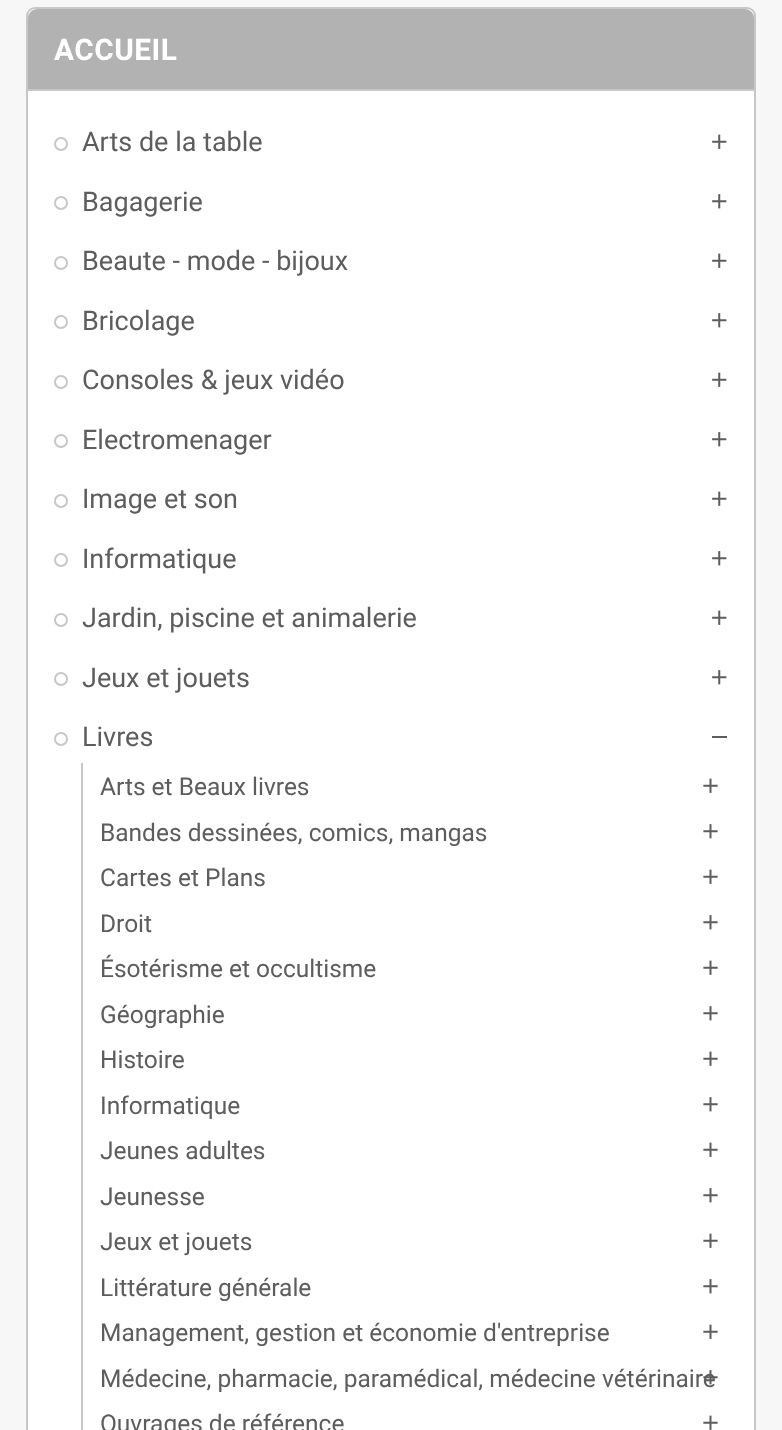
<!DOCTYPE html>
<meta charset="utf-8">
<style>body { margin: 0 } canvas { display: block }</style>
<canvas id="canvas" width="782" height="1430"></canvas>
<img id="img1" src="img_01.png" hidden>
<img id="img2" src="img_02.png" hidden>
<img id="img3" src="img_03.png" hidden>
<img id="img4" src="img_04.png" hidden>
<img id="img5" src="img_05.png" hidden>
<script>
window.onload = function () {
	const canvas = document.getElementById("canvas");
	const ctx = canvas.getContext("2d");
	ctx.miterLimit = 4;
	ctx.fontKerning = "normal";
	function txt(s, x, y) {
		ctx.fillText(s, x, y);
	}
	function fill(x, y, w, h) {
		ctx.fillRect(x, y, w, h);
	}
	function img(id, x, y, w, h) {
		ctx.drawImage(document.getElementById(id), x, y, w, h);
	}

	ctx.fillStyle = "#F7F7F7";
	fill(0, 0, 782, 1430);
	ctx.fillStyle = "#FFFFFF";
	ctx.beginPath();
	ctx.roundRect(27, 8, 728, 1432, 8);
	ctx.fill();
	ctx.strokeStyle = "#C7C7C7";
	ctx.lineWidth = 2;
	ctx.stroke();
	ctx.fillStyle = "#B2B2B2";
	ctx.beginPath();
	ctx.roundRect(28, 9, 726, 82, [9, 9, 0, 0]);
	ctx.fill();
	ctx.fillStyle = "#C7C7C7";
	fill(28, 89, 726, 2);
	ctx.beginPath();
	ctx.arc(61, 144, 6, 0, Math.PI * 2);
	ctx.stroke();
	img("img1", 712, 134, 15, 15);
	ctx.beginPath();
	ctx.arc(61, 203, 6, 0, Math.PI * 2);
	ctx.stroke();
	img("img2", 712, 194, 15, 15);
	ctx.beginPath();
	ctx.arc(61, 263, 6, 0, Math.PI * 2);
	ctx.stroke();
	img("img1", 712, 253, 15, 15);
	ctx.beginPath();
	ctx.arc(61, 322, 6, 0, Math.PI * 2);
	ctx.stroke();
	img("img2", 712, 313, 15, 15);
	ctx.beginPath();
	ctx.arc(61, 382, 6, 0, Math.PI * 2);
	ctx.stroke();
	img("img1", 712, 372, 15, 15);
	ctx.beginPath();
	ctx.arc(61, 441, 6, 0, Math.PI * 2);
	ctx.stroke();
	img("img2", 712, 432, 15, 15);
	ctx.beginPath();
	ctx.arc(61, 501, 6, 0, Math.PI * 2);
	ctx.stroke();
	img("img1", 712, 491, 15, 15);
	ctx.beginPath();
	ctx.arc(61, 560, 6, 0, Math.PI * 2);
	ctx.stroke();
	img("img2", 712, 551, 15, 15);
	ctx.beginPath();
	ctx.arc(61, 620, 6, 0, Math.PI * 2);
	ctx.stroke();
	img("img1", 712, 610, 15, 15);
	ctx.beginPath();
	ctx.arc(61, 679, 6, 0, Math.PI * 2);
	ctx.stroke();
	img("img2", 712, 670, 15, 15);
	ctx.beginPath();
	ctx.arc(61, 739, 6, 0, Math.PI * 2);
	ctx.stroke();
	ctx.fillStyle = "#5D5D5D";
	fill(712, 736, 15, 2);
	ctx.fillStyle = "#C7C7C7";
	fill(81, 763, 2, 667);
	img("img3", 703, 778, 15, 15);
	img("img4", 703, 824, 15, 15);
	img("img3", 703, 869, 15, 15);
	img("img4", 703, 915, 15, 15);
	img("img3", 703, 960, 15, 15);
	img("img4", 703, 1006, 15, 15);
	img("img3", 703, 1051, 15, 15);
	img("img4", 703, 1097, 15, 15);
	img("img3", 703, 1142, 15, 15);
	img("img4", 703, 1188, 15, 15);
	img("img3", 703, 1233, 15, 15);
	img("img4", 703, 1279, 15, 15);
	img("img3", 703, 1324, 15, 15);
	img("img3", 703, 1415, 15, 15);
	ctx.letterSpacing = "0.5px";
	ctx.font = "bold 29.75px Roboto";
	ctx.fillStyle = "#FFFFFF";
	txt("ACCUEIL", 54, 60);
	ctx.letterSpacing = "0px";
	ctx.font = "27px Roboto";
	ctx.fillStyle = "#5D5D5D";
	txt("Arts de la table", 82, 151);
	txt("Bagagerie", 82, 211);
	txt("Beaute - mode - bijoux", 82, 270);
	txt("Bricolage", 82, 330);
	txt("Consoles & jeux vidéo", 82, 389);
	txt("Electromenager", 82, 449);
	txt("Image et son", 82, 508);
	txt("Informatique", 82, 568);
	txt("Jardin, piscine et animalerie", 82, 627);
	txt("Jeux et jouets", 82, 687);
	txt("Livres", 82, 746);
	ctx.font = "24.5px Roboto";
	txt("Arts et Beaux livres", 100, 795);
	txt("Bandes dessinées, comics, mangas", 100, 841);
	txt("Cartes et Plans", 100, 886);
	txt("Droit", 100, 932);
	txt("Ésotérisme et occultisme", 100, 977);
	txt("Géographie", 100, 1023);
	txt("Histoire", 100, 1068);
	txt("Informatique", 100, 1114);
	txt("Jeunes adultes", 100, 1159);
	txt("Jeunesse", 100, 1205);
	txt("Jeux et jouets", 100, 1250);
	txt("Littérature générale", 100, 1296);
	txt("Management, gestion et économie d'entreprise", 100, 1341);
	txt("Médecine, pharmacie, paramédical, médecine vétérinaire", 100, 1387);
	img("img5", 703, 1370, 15, 15);
	txt("Ouvrages de référence", 100, 1432);
};
</script>
